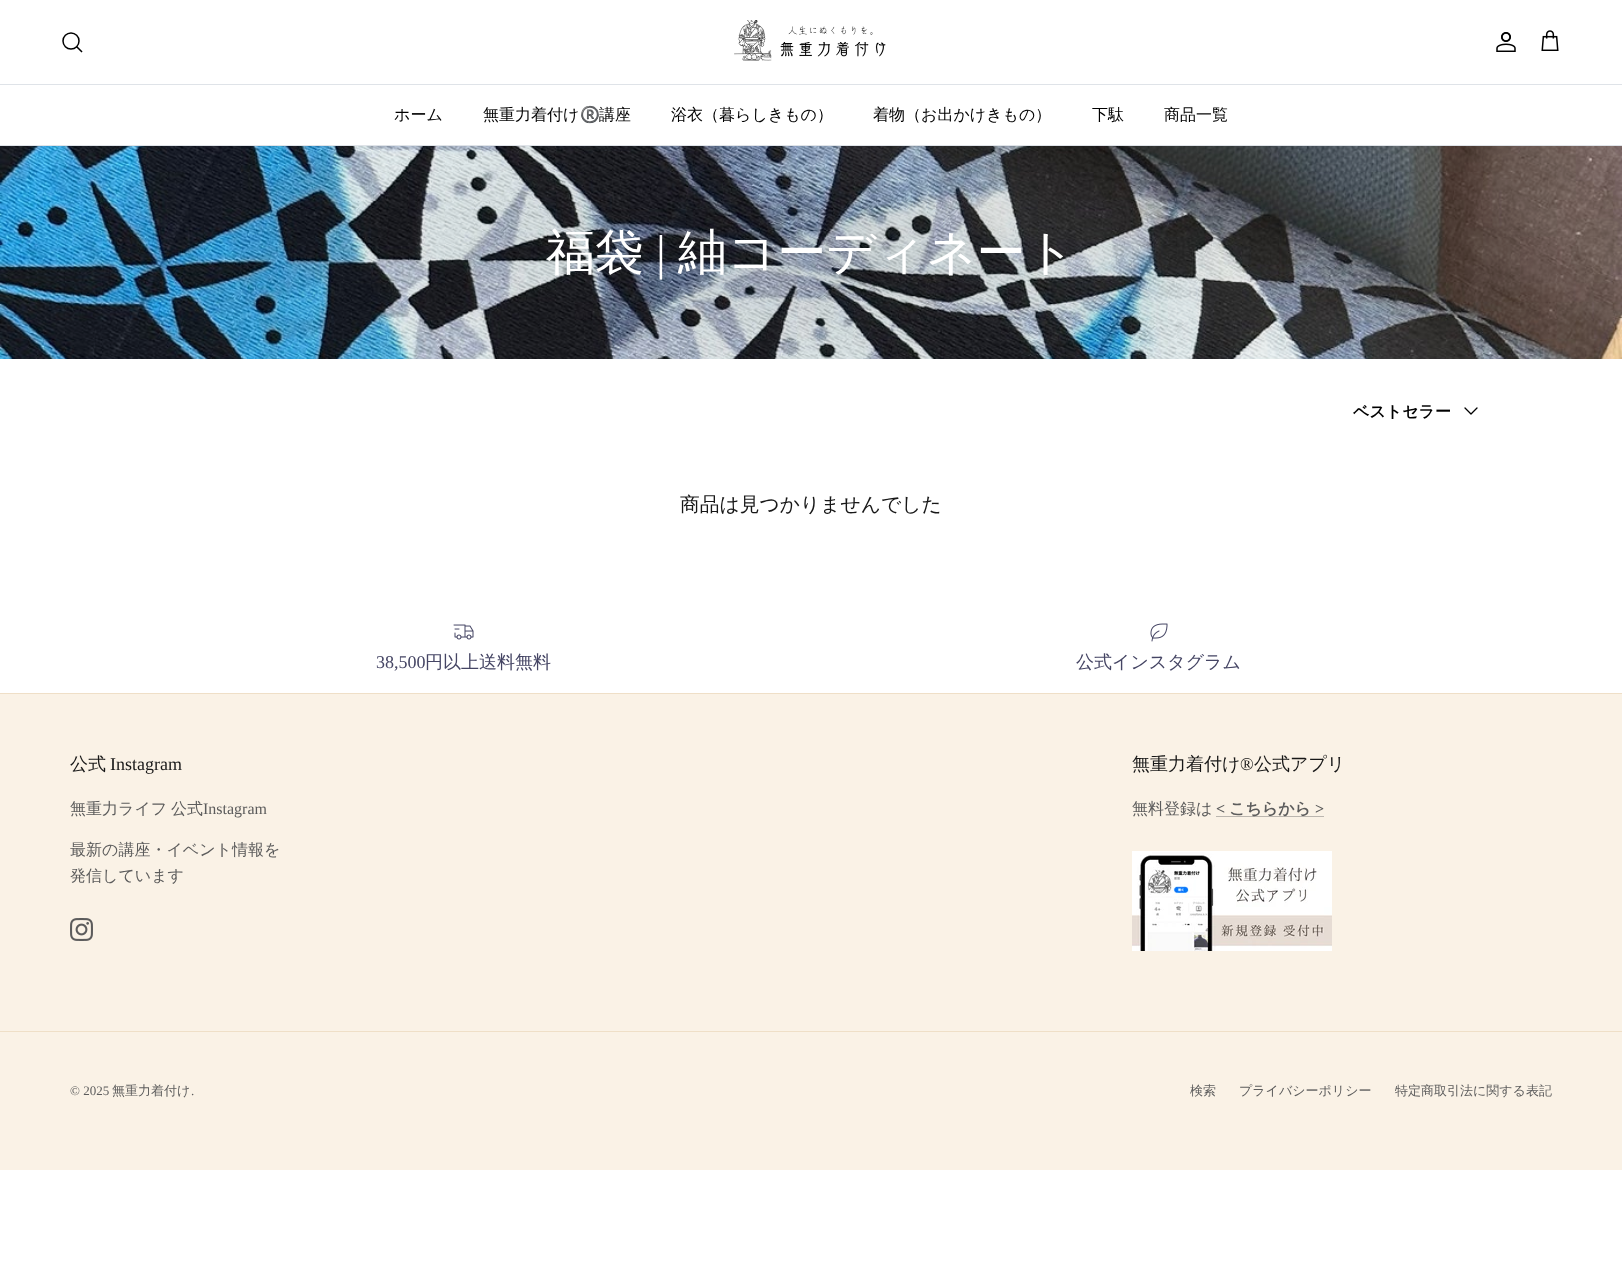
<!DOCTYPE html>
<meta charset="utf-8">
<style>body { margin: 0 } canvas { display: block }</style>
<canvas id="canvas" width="1622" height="1284"></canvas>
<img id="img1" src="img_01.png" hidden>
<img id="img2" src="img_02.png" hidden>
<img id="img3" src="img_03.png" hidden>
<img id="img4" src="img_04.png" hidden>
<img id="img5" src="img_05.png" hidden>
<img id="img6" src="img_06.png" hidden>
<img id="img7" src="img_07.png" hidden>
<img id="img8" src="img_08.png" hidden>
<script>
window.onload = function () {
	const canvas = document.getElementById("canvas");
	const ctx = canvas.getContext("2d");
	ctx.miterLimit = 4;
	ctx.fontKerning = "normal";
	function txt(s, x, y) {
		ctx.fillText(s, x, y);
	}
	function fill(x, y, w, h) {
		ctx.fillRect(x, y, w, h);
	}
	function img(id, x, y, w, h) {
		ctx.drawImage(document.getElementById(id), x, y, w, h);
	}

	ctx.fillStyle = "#FFFFFF";
	fill(0, 0, 1622, 1284);
	ctx.fillStyle = "#DFE3E8";
	fill(0, 84, 1622, 1);
	ctx.beginPath();
	ctx.arc(71, 41, 8, 0, Math.PI * 2);
	ctx.strokeStyle = "#000000";
	ctx.lineWidth = 1.5;
	ctx.stroke();
	ctx.beginPath();
	ctx.moveTo(77, 47);
	ctx.lineTo(81.5, 51.5);
	ctx.lineCap = "square";
	ctx.stroke();
	img("img1", 734, 20, 152, 41);
	img("img2", 1496, 32, 20, 20);
	img("img3", 1541, 30, 18, 21);
	fill(0, 145, 1622, 1);
	img("img4", 0, 146, 1622, 213);
	ctx.beginPath();
	ctx.moveTo(1465, 408);
	ctx.lineTo(1471, 414);
	ctx.lineTo(1477, 408);
	ctx.lineWidth = 1.3;
	ctx.lineCap = "round";
	ctx.lineJoin = "round";
	ctx.stroke();
	img("img5", 453, 624, 21, 16);
	img("img6", 1150, 623, 18, 19);
	ctx.fillStyle = "#FAF2E6";
	fill(0, 694, 1622, 476);
	ctx.fillStyle = "#EFDFC7";
	fill(0, 693, 1622, 1);
	img("img7", 70, 918, 23, 23);
	ctx.fillStyle = "#BBB6AF";
	fill(1216, 816, 108, 1);
	img("img8", 1132, 851, 200, 100);
	ctx.fillStyle = "#EFDFC7";
	fill(0, 1031, 1622, 1);
	ctx.font = "500 16px WenQuanYi Zen Hei";
	ctx.fillStyle = "#000000";
	txt("ホーム", 394, 120);
	txt("無重力着付け", 483, 120);
	ctx.font = "16px Noto Color Emoji";
	txt("®️", 580, 120);
	ctx.font = "500 16px WenQuanYi Zen Hei";
	txt("講座", 599, 120);
	txt("浴衣（暮らしきもの）", 671, 120);
	txt("着物（お出かけきもの）", 873, 120);
	txt("下駄", 1092, 120);
	txt("商品一覧", 1164, 120);
	ctx.font = "500 49px WenQuanYi Zen Hei";
	ctx.fillStyle = "#FFFFFF";
	txt("福袋", 546, 269);
	ctx.font = "49px Liberation Serif";
	txt("|", 656, 269);
	ctx.font = "500 49px WenQuanYi Zen Hei";
	txt("紬コーディネート", 678, 269);
	ctx.font = "bold 16px WenQuanYi Zen Hei";
	ctx.fillStyle = "#000000";
	txt("ベストセラー", 1353, 417);
	ctx.font = "500 19.8px WenQuanYi Zen Hei";
	ctx.fillStyle = "#171717";
	txt("商品は見つかりませんでした", 680, 511);
	ctx.font = "18px Liberation Serif";
	ctx.fillStyle = "#454564";
	txt("38,500", 376, 668);
	ctx.font = "500 18px WenQuanYi Zen Hei";
	txt("円以上送料無料", 425, 668);
	txt("公式インスタグラム", 1076, 668);
	ctx.fillStyle = "#171717";
	txt("公式", 70, 770);
	ctx.font = "18px Liberation Serif";
	txt("Instagram", 110, 770);
	ctx.wordSpacing = "-1px";
	ctx.font = "500 16px WenQuanYi Zen Hei";
	ctx.fillStyle = "#5C5C5C";
	txt("無重力ライフ 公式", 70, 814);
	ctx.wordSpacing = "0px";
	ctx.font = "16px Liberation Serif";
	txt("Instagram", 203, 814);
	ctx.font = "500 16px WenQuanYi Zen Hei";
	txt("最新の講座・イベント情報を", 70, 855);
	txt("発信しています", 70, 881);
	ctx.font = "500 18px WenQuanYi Zen Hei";
	ctx.fillStyle = "#171717";
	txt("無重力着付け", 1132, 770);
	ctx.font = "18px Liberation Serif";
	txt("®︎", 1240, 770);
	ctx.font = "500 18px WenQuanYi Zen Hei";
	txt("公式アプリ", 1254, 770);
	ctx.font = "500 16px WenQuanYi Zen Hei";
	ctx.fillStyle = "#5C5C5C";
	txt("無料登録は", 1132, 814);
	ctx.font = "bold 16px Liberation Serif";
	txt("<", 1216, 814);
	ctx.font = "bold 16px WenQuanYi Zen Hei";
	txt("こちらから", 1229, 814);
	ctx.font = "bold 16px Liberation Serif";
	txt(">", 1315, 814);
	ctx.font = "13px Liberation Serif";
	txt("© 2025", 70, 1095);
	ctx.font = "500 13px WenQuanYi Zen Hei";
	txt("無重力着付け", 112, 1095);
	ctx.font = "13px Liberation Serif";
	txt(".", 191, 1095);
	ctx.font = "500 13px WenQuanYi Zen Hei";
	txt("検索", 1190, 1095);
	txt("プライバシーポリシー", 1239, 1095);
	txt("特定商取引法に関する表記", 1395, 1095);
};
</script>
